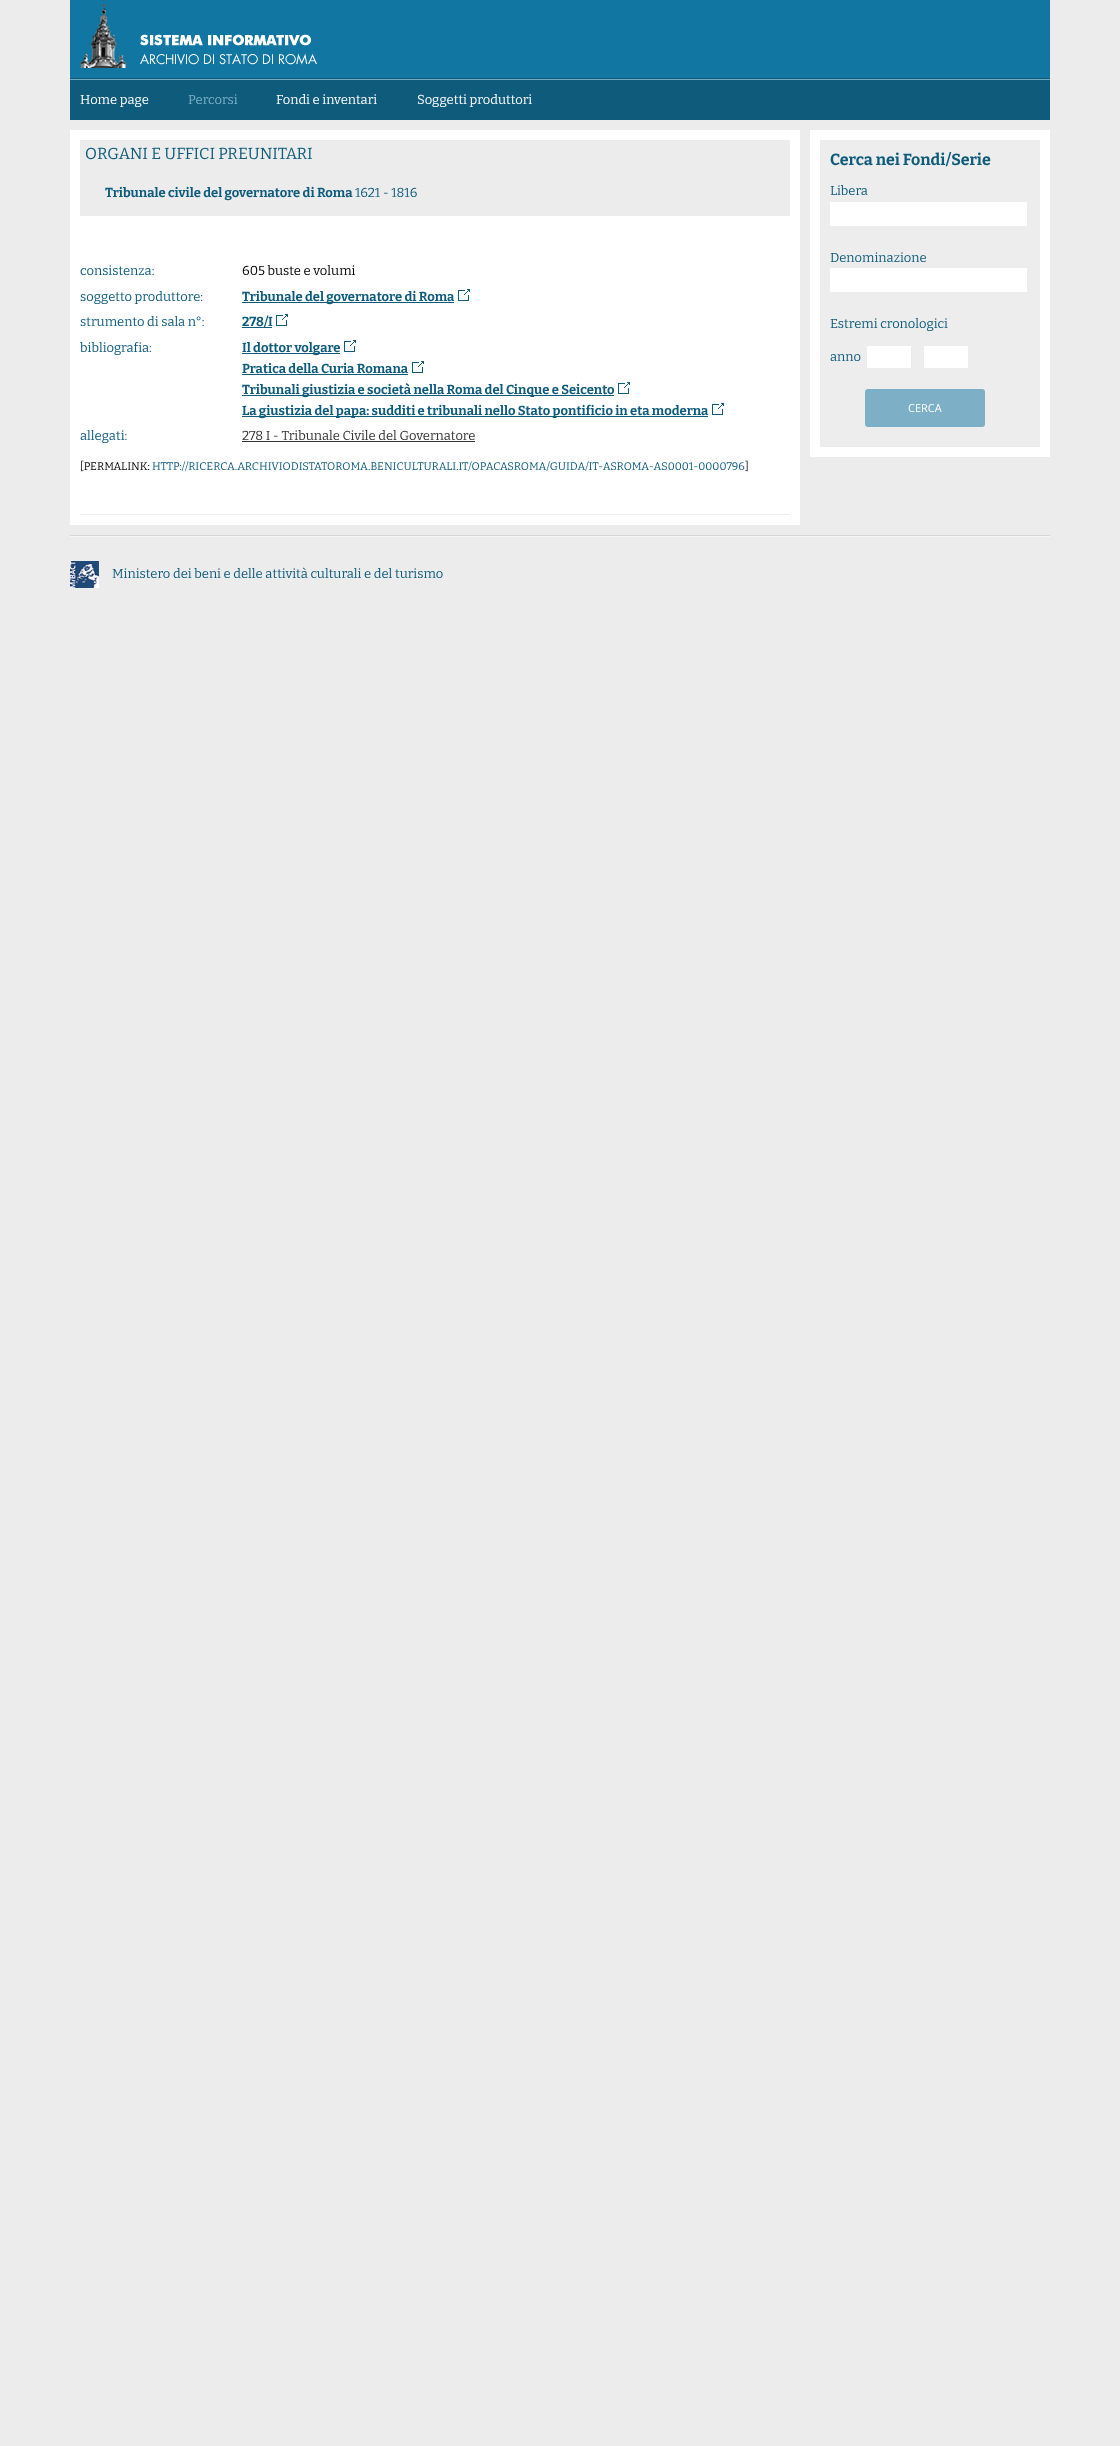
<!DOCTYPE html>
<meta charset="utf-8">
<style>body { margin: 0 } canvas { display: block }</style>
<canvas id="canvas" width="1120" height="2446"></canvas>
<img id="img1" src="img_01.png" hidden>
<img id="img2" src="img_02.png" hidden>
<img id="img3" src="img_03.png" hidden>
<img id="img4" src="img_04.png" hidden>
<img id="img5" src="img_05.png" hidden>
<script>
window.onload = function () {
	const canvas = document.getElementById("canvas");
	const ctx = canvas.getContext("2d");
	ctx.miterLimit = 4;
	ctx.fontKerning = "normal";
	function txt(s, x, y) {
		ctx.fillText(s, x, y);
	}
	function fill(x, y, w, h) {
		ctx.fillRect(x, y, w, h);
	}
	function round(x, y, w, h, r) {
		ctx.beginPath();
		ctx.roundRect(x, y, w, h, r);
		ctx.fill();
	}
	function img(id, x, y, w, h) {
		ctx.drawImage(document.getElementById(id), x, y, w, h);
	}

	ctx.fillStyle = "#ECECEC";
	fill(0, 0, 1120, 2446);
	img("img1", 70, 0, 980, 120);
	img("img2", 80, 3, 237, 65);
	ctx.fillStyle = "#FFFFFF";
	fill(70, 130, 730, 395);
	ctx.fillStyle = "#ECECEC";
	fill(80, 140, 710, 76);
	ctx.fillStyle = "#0E5B7C";
	fill(242, 302, 212, 1);
	img("img3", 458, 289, 12, 12);
	fill(242, 327, 30, 1);
	img("img3", 276, 314, 12, 12);
	fill(242, 353, 98, 1);
	img("img3", 344, 340, 12, 12);
	fill(242, 374, 166, 1);
	img("img3", 412, 361, 12, 12);
	fill(242, 395, 372, 1);
	img("img3", 618, 382, 12, 12);
	fill(242, 416, 466, 1);
	img("img3", 712, 403, 12, 12);
	ctx.fillStyle = "#333333";
	fill(242, 441, 233, 1);
	ctx.fillStyle = "#EEEEEE";
	fill(80, 514, 710, 1);
	ctx.fillStyle = "#FFFFFF";
	fill(810, 130, 240, 327);
	ctx.fillStyle = "#EDEDED";
	fill(820, 140, 220, 307);
	ctx.fillStyle = "#FFFFFF";
	fill(830, 202, 197, 24);
	fill(830, 268, 197, 24);
	fill(867, 346, 44, 22);
	fill(924, 346, 44, 22);
	ctx.fillStyle = "#7DB0C7";
	round(865, 389, 120, 38, 3);
	img("img4", 70, 535, 980, 2);
	img("img5", 70, 561, 29, 27);
	ctx.font = "13px Bitter";
	ctx.fillStyle = "#FFFFFF";
	txt("Home page", 80, 104);
	ctx.fillStyle = "#7DB0C7";
	txt("Percorsi", 188, 104);
	ctx.fillStyle = "#FFFFFF";
	txt("Fondi e inventari", 276, 104);
	txt("Soggetti produttori", 417, 104);
	ctx.font = "16px Bitter";
	ctx.fillStyle = "#0E5B7C";
	txt("ORGANI E UFFICI PREUNITARI", 85, 159);
	ctx.font = "bold 13px Bitter";
	txt("Tribunale civile del governatore di Roma", 105, 197);
	ctx.font = "13px Bitter";
	txt("1621 - 1816", 355, 197);
	txt("consistenza:", 80, 275);
	ctx.fillStyle = "#000000";
	txt("605 buste e volumi", 242, 275);
	ctx.fillStyle = "#0E5B7C";
	txt("soggetto produttore:", 80, 301);
	ctx.font = "bold 13px Bitter";
	txt("Tribunale del governatore di Roma", 242, 301);
	ctx.font = "13px Bitter";
	txt("strumento di sala n°:", 80, 326);
	ctx.font = "bold 13px Bitter";
	txt("278/I", 242, 326);
	ctx.font = "13px Bitter";
	txt("bibliografia:", 80, 352);
	ctx.font = "bold 13px Bitter";
	txt("Il dottor volgare", 242, 352);
	txt("Pratica della Curia Romana", 242, 373);
	txt("Tribunali giustizia e società nella Roma del Cinque e Seicento", 242, 394);
	txt("La giustizia del papa: sudditi e tribunali nello Stato pontificio in eta moderna", 242, 415);
	ctx.font = "13px Bitter";
	txt("allegati:", 80, 440);
	ctx.fillStyle = "#333333";
	txt("278 I - Tribunale Civile del Governatore", 242, 440);
	ctx.font = "11px Bitter";
	ctx.fillStyle = "#000000";
	txt("[PERMALINK:", 80, 470);
	ctx.fillStyle = "#0E5B7C";
	txt("HTTP://RICERCA.ARCHIVIODISTATOROMA.BENICULTURALI.IT/OPACASROMA/GUIDA/IT-ASROMA-AS0001-0000796", 152, 470);
	ctx.fillStyle = "#000000";
	txt("]", 745, 470);
	ctx.font = "bold 16px Bitter";
	ctx.fillStyle = "#0E5B7C";
	txt("Cerca nei Fondi/Serie", 830, 165);
	ctx.font = "13px Bitter";
	txt("Libera", 830, 195);
	txt("Denominazione", 830, 262);
	txt("Estremi cronologici", 830, 328);
	txt("anno", 830, 361);
	ctx.font = "11px Open Sans";
	ctx.fillStyle = "#FFFFFF";
	txt("CERCA", 908, 412);
	ctx.font = "13px Bitter";
	ctx.fillStyle = "#0E5B7C";
	txt("Ministero dei beni e delle attività culturali e del turismo", 112, 578);
};
</script>
